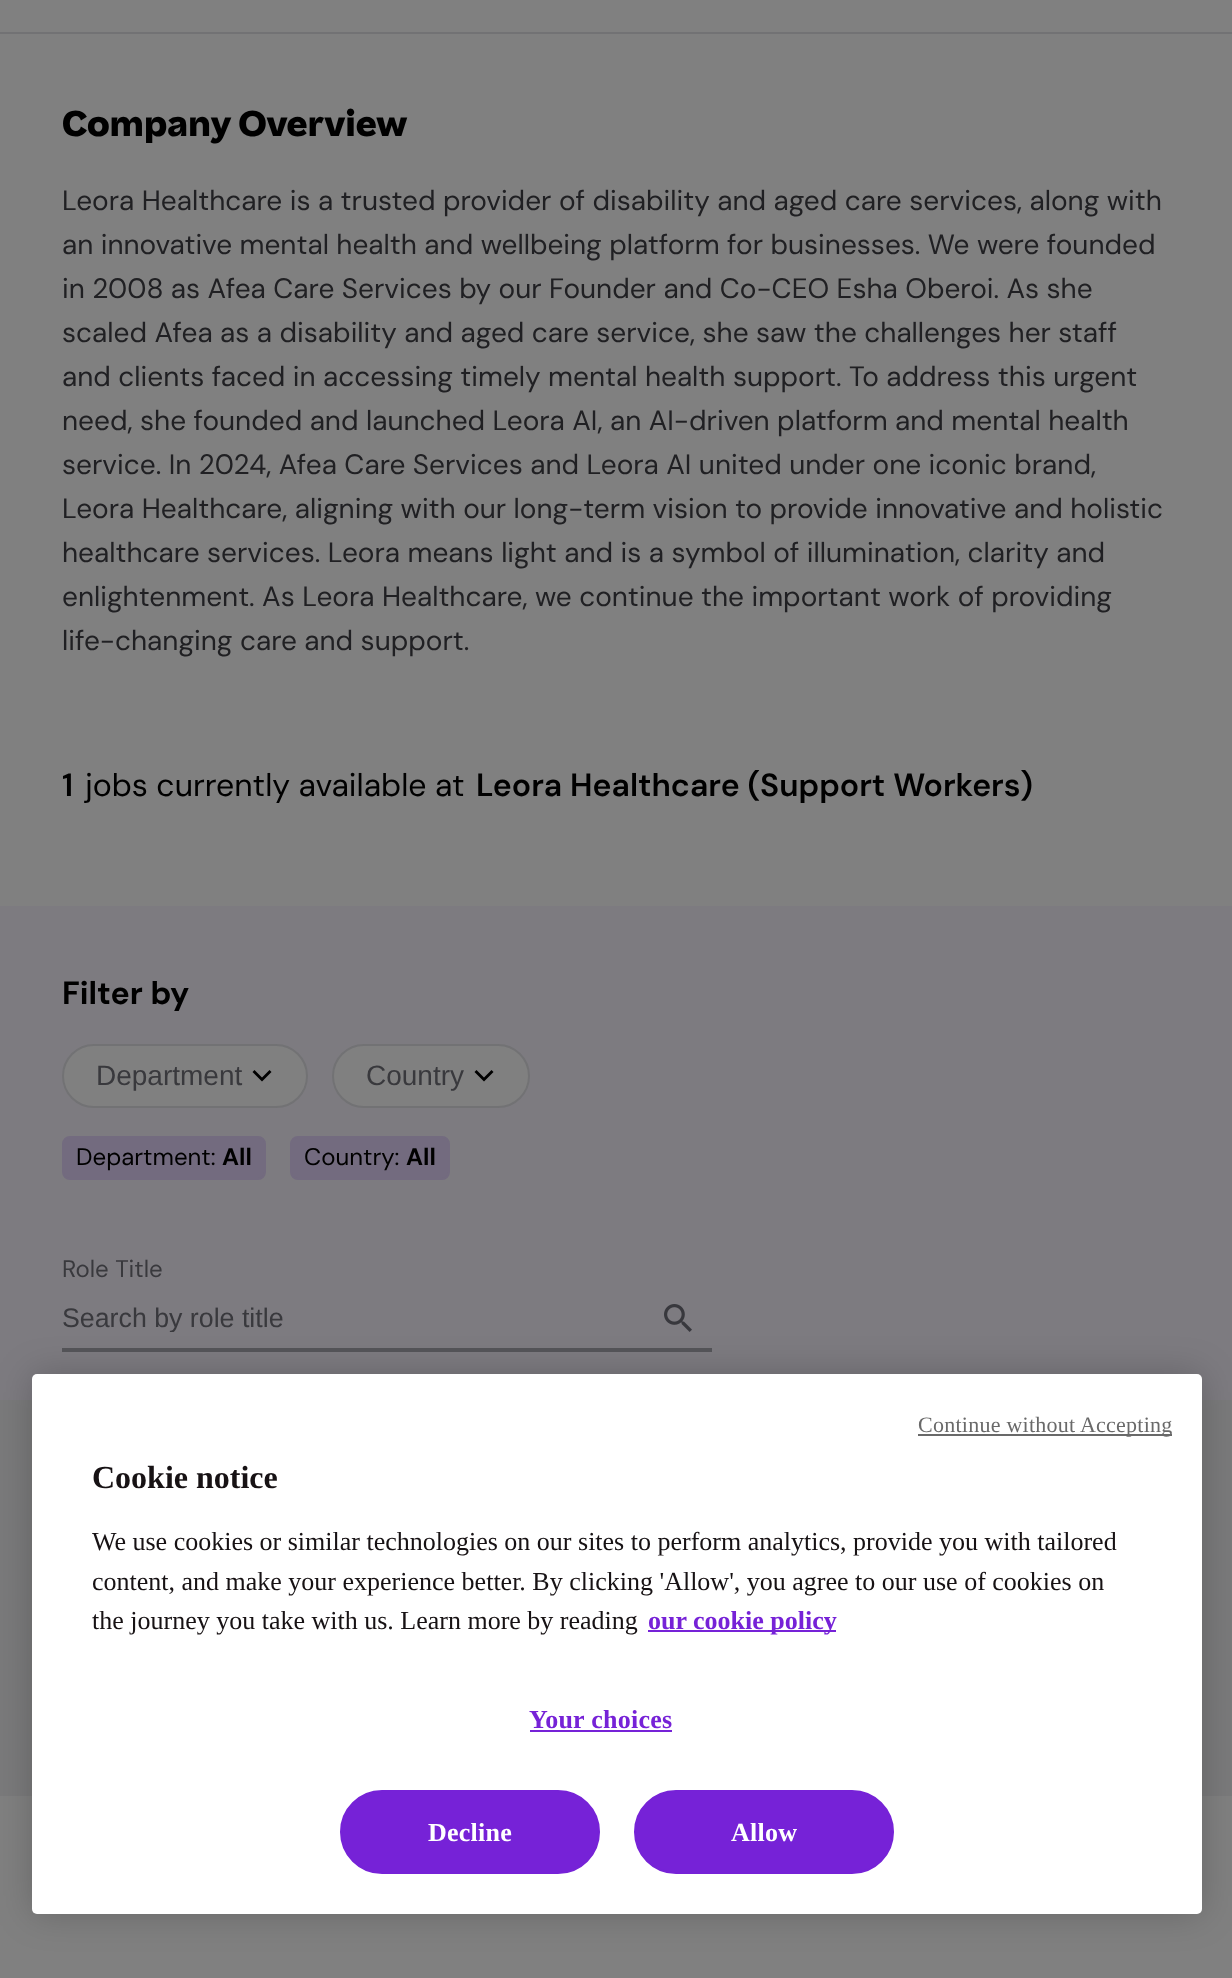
<!DOCTYPE html>
<meta charset="utf-8">
<style>body { margin: 0 } canvas { display: block }</style>
<canvas id="canvas" width="1232" height="1978"></canvas>
<img id="img1" src="img_01.png" hidden>
<script>
window.onload = function () {
	const canvas = document.getElementById("canvas");
	const ctx = canvas.getContext("2d");
	ctx.miterLimit = 4;
	ctx.fontKerning = "normal";
	function txt(s, x, y) {
		ctx.fillText(s, x, y);
	}
	function fill(x, y, w, h) {
		ctx.fillRect(x, y, w, h);
	}
	function round(x, y, w, h, r) {
		ctx.beginPath();
		ctx.roundRect(x, y, w, h, r);
		ctx.fill();
	}
	function img(id, x, y, w, h) {
		ctx.drawImage(document.getElementById(id), x, y, w, h);
	}

	ctx.fillStyle = "#808080";
	fill(0, 0, 1232, 1978);
	ctx.fillStyle = "#727274";
	fill(0, 32, 1232, 2);
	ctx.fillStyle = "#7A7A7B";
	fill(0, 1400, 1232, 396);
	ctx.fillStyle = "#7D7B80";
	fill(0, 906, 1232, 494);
	ctx.fillStyle = "#808080";
	ctx.beginPath();
	ctx.roundRect(63, 1045, 244, 62, 31);
	ctx.fill();
	ctx.strokeStyle = "#727274";
	ctx.lineWidth = 2;
	ctx.stroke();
	ctx.fillStyle = "#000000";
	ctx.beginPath();
	ctx.moveTo(262, 1081.5);
	ctx.lineTo(252.5, 1072);
	ctx.lineTo(254.5, 1070);
	ctx.lineTo(262, 1077.5);
	ctx.lineTo(269.5, 1070);
	ctx.lineTo(271.5, 1072);
	ctx.closePath();
	ctx.fill();
	ctx.fillStyle = "#808080";
	ctx.beginPath();
	ctx.roundRect(333, 1045, 196, 62, 31);
	ctx.fill();
	ctx.stroke();
	ctx.fillStyle = "#000000";
	ctx.beginPath();
	ctx.moveTo(484, 1081.5);
	ctx.lineTo(474.5, 1072);
	ctx.lineTo(476.5, 1070);
	ctx.lineTo(484, 1077.5);
	ctx.lineTo(491.5, 1070);
	ctx.lineTo(493.5, 1072);
	ctx.closePath();
	ctx.fill();
	ctx.fillStyle = "#736B7F";
	ctx.beginPath();
	ctx.roundRect(63, 1137, 202, 42, 7);
	ctx.fill();
	ctx.strokeStyle = "#736B7F";
	ctx.stroke();
	ctx.beginPath();
	ctx.roundRect(291, 1137, 158, 42, 7);
	ctx.fill();
	ctx.stroke();
	ctx.fillStyle = "#555559";
	fill(62, 1348, 650, 4);
	img("img1", 664, 1304, 28, 28);
	ctx.fillStyle = "rgba(0, 0, 0, 0.2)";
	ctx.filter = "blur(18px)";
	ctx.beginPath();
	ctx.roundRect(32, 1374, 1170, 540, 5);
	ctx.fill();
	ctx.filter = "none";
	ctx.fillStyle = "#FFFFFF";
	round(32, 1374, 1170, 540, 5);
	ctx.fillStyle = "#696969";
	fill(918, 1434, 254, 2);
	ctx.fillStyle = "#7622D7";
	fill(648, 1630, 188, 2);
	fill(530, 1730, 142, 2);
	ctx.beginPath();
	ctx.roundRect(341, 1791, 258, 82, 41);
	ctx.fill();
	ctx.strokeStyle = "#7622D7";
	ctx.stroke();
	ctx.beginPath();
	ctx.roundRect(635, 1791, 258, 82, 41);
	ctx.fill();
	ctx.stroke();
	ctx.letterSpacing = "-0.4px";
	ctx.font = "bold 36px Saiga";
	ctx.fillStyle = "#000000";
	txt("Company Overview", 62, 136);
	ctx.letterSpacing = "0px";
	ctx.font = "28px DM Sans";
	ctx.fillStyle = "#202023";
	txt("Leora Healthcare is a trusted provider of disability and aged care services, along with", 62, 210);
	txt("an innovative mental health and wellbeing platform for businesses. We were founded", 62, 254);
	txt("in 2008 as Afea Care Services by our Founder and Co-CEO Esha Oberoi. As she", 62, 298);
	txt("scaled Afea as a disability and aged care service, she saw the challenges her staff", 62, 342);
	txt("and clients faced in accessing timely mental health support. To address this urgent", 62, 386);
	txt("need, she founded and launched Leora AI, an AI-driven platform and mental health", 62, 430);
	txt("service. In 2024, Afea Care Services and Leora AI united under one iconic brand,", 62, 474);
	txt("Leora Healthcare, aligning with our long-term vision to provide innovative and holistic", 62, 518);
	txt("healthcare services. Leora means light and is a symbol of illumination, clarity and", 62, 562);
	txt("enlightenment. As Leora Healthcare, we continue the important work of providing", 62, 606);
	txt("life-changing care and support.", 62, 650);
	ctx.font = "600 32px DM Sans";
	ctx.fillStyle = "#000000";
	txt("1", 62, 796);
	ctx.font = "32px DM Sans";
	txt("jobs currently available at", 85, 796);
	ctx.font = "600 32px DM Sans";
	txt("Leora Healthcare (Support Workers)", 476, 796);
	ctx.font = "bold 32px DM Sans";
	txt("Filter by", 62, 1004);
	ctx.font = "28px Liberation Sans";
	ctx.fillStyle = "#39393D";
	txt("Department", 96, 1085);
	txt("Country", 366, 1085);
	ctx.font = "24px DM Sans";
	ctx.fillStyle = "#000000";
	txt("Department:", 76, 1165);
	ctx.font = "bold 24px DM Sans";
	txt("All", 222, 1165);
	ctx.font = "24px DM Sans";
	txt("Country:", 304, 1165);
	ctx.font = "bold 24px DM Sans";
	txt("All", 406, 1165);
	ctx.font = "24px DM Sans";
	ctx.fillStyle = "#39393D";
	txt("Role Title", 62, 1277);
	ctx.save();
	ctx.beginPath();
	ctx.rect(62, 1302, 650, 30);
	ctx.clip();
	ctx.font = "26.75px Liberation Sans";
	txt("Search by role title", 62, 1327);
	ctx.restore();
	ctx.letterSpacing = "0.25px";
	ctx.font = "22px Liberation Serif";
	ctx.fillStyle = "#696969";
	txt("Continue without Accepting", 918, 1432);
	ctx.letterSpacing = "0px";
	ctx.font = "bold 32px Liberation Serif";
	ctx.fillStyle = "#171214";
	txt("Cookie notice", 92, 1488);
	ctx.font = "26px Liberation Serif";
	txt("We use cookies or similar technologies on our sites to perform analytics, provide you with tailored", 92, 1550);
	txt("content, and make your experience better. By clicking 'Allow', you agree to our use of cookies on", 92, 1590);
	txt("the journey you take with us. Learn more by reading", 92, 1629);
	ctx.font = "bold 26px Liberation Serif";
	ctx.fillStyle = "#7622D7";
	txt("our cookie policy", 648, 1629);
	ctx.letterSpacing = "0.25px";
	txt("Your choices", 529, 1728);
	ctx.fillStyle = "#FFFFFF";
	txt("Decline", 428, 1841);
	txt("Allow", 731, 1841);
};
</script>
